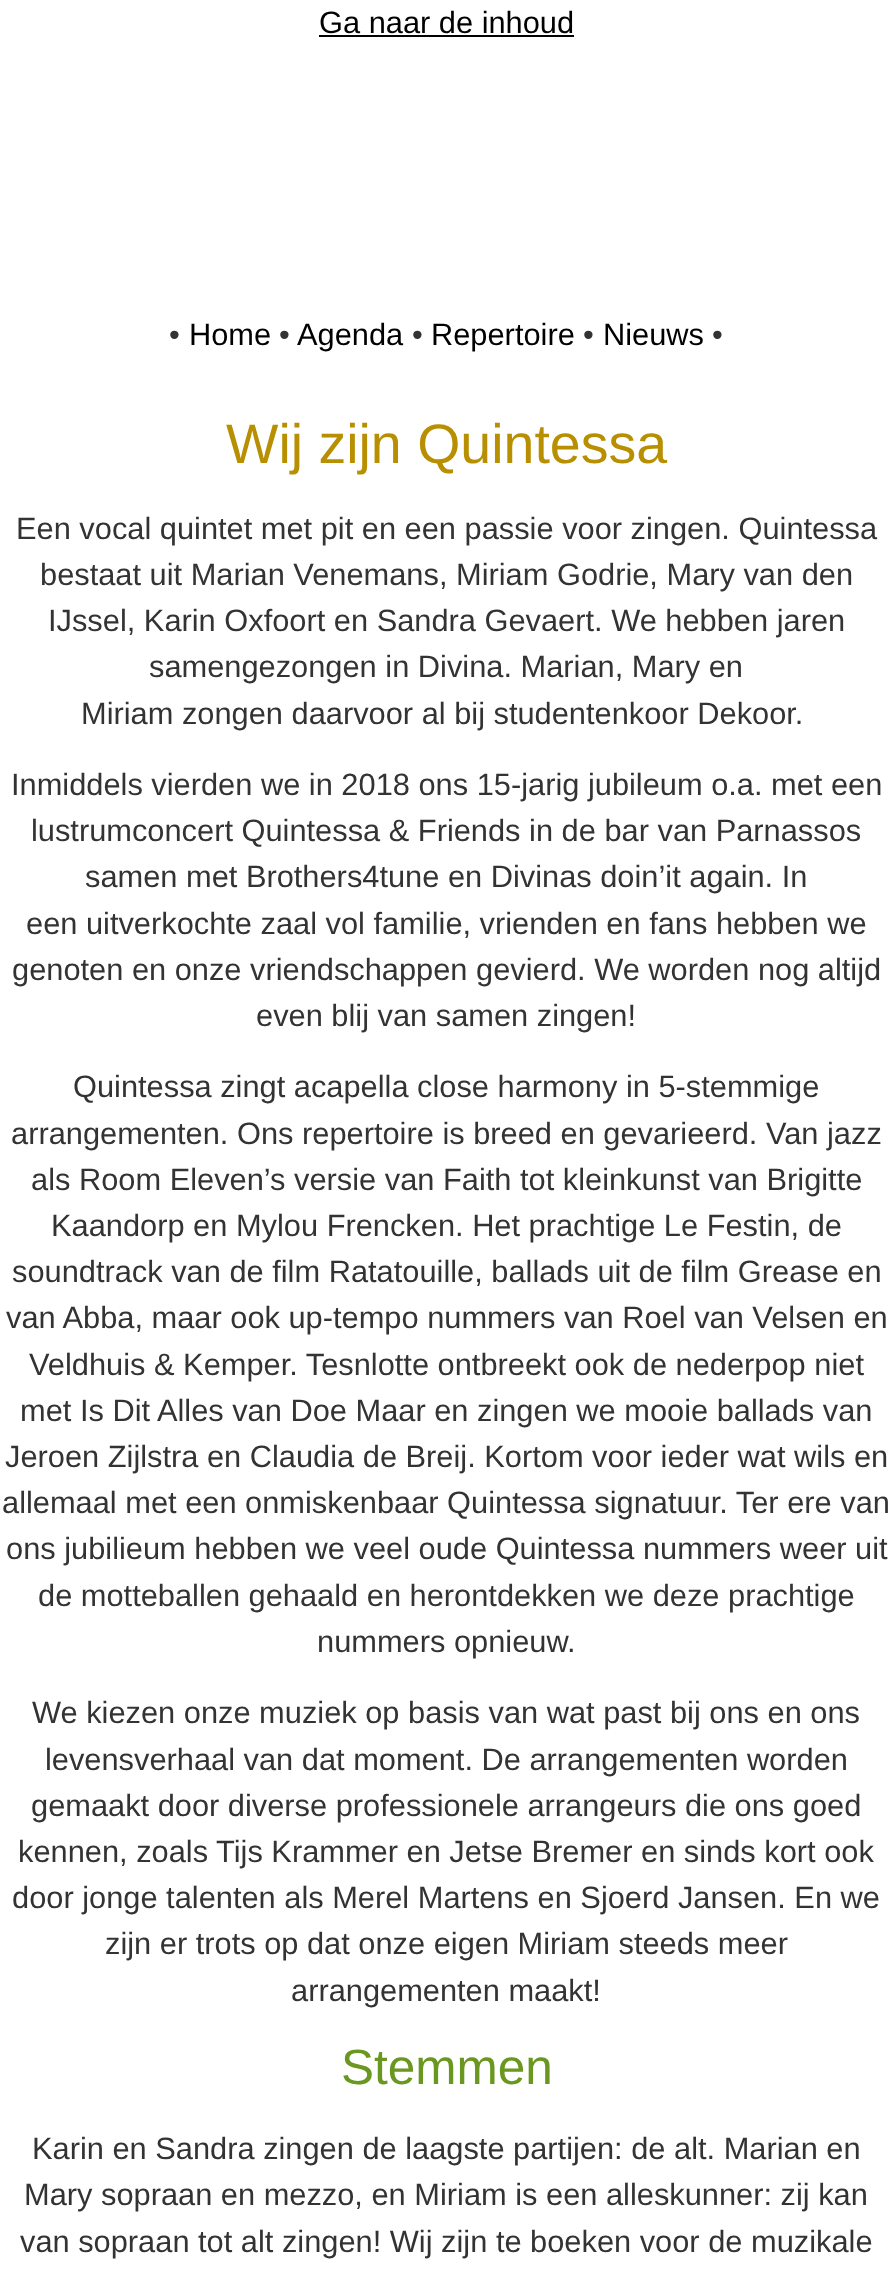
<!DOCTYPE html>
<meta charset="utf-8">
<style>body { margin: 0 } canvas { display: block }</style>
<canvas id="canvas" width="891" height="2291"></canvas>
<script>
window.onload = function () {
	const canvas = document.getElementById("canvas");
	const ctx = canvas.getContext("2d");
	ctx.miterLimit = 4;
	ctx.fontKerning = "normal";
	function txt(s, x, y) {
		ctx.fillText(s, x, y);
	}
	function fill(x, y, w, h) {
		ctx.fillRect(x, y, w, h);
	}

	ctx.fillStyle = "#FFFFFF";
	fill(0, 0, 891, 2291);
	ctx.fillStyle = "#000000";
	fill(319, 35, 255, 2);
	ctx.font = "30.8px Liberation Sans";
	txt("Ga naar de inhoud", 319, 33);
	ctx.fillStyle = "#333333";
	txt("•", 169, 345);
	ctx.fillStyle = "#000000";
	txt("Home", 189, 345);
	ctx.fillStyle = "#333333";
	txt("•", 279, 345);
	ctx.fillStyle = "#000000";
	txt("Agenda", 297, 345);
	ctx.fillStyle = "#333333";
	txt("•", 412, 345);
	ctx.fillStyle = "#000000";
	txt("Repertoire", 431, 345);
	ctx.fillStyle = "#333333";
	txt("•", 583, 345);
	ctx.fillStyle = "#000000";
	txt("Nieuws", 603, 345);
	ctx.fillStyle = "#333333";
	txt("•", 712, 345);
	ctx.font = "55.5px Liberation Sans";
	ctx.fillStyle = "#B88F00";
	txt("Wij zijn Quintessa", 226, 463);
	ctx.font = "30.8px Liberation Sans";
	ctx.fillStyle = "#333333";
	txt("Een vocal quintet met pit en een passie voor zingen. Quintessa", 16, 539);
	txt("bestaat uit Marian Venemans, Miriam Godrie, Mary van den", 40, 585);
	txt("IJssel, Karin Oxfoort en Sandra Gevaert. We hebben jaren", 48, 631);
	txt("samengezongen in Divina. Marian, Mary en", 149, 677);
	txt("Miriam zongen daarvoor al bij studentenkoor Dekoor.", 81, 724);
	txt("Inmiddels vierden we in 2018 ons 15-jarig jubileum o.a. met een", 11, 795);
	txt("lustrumconcert Quintessa & Friends in de bar van Parnassos", 31, 841);
	txt("samen met Brothers4tune en Divinas doin’it again. In", 85, 887);
	txt("een uitverkochte zaal vol familie, vrienden en fans hebben we", 26, 934);
	txt("genoten en onze vriendschappen gevierd. We worden nog altijd", 12, 980);
	txt("even blij van samen zingen!", 256, 1026);
	txt("Quintessa zingt acapella close harmony in 5-stemmige", 73, 1097);
	txt("arrangementen. Ons repertoire is breed en gevarieerd. Van jazz", 11, 1144);
	txt("als Room Eleven’s versie van Faith tot kleinkunst van Brigitte", 31, 1190);
	txt("Kaandorp en Mylou Frencken. Het prachtige Le Festin, de", 51, 1236);
	txt("soundtrack van de film Ratatouille, ballads uit de film Grease en", 12, 1282);
	txt("van Abba, maar ook up-tempo nummers van Roel van Velsen en", 6, 1328);
	txt("Veldhuis & Kemper. Tesnlotte ontbreekt ook de nederpop niet", 29, 1375);
	txt("met Is Dit Alles van Doe Maar en zingen we mooie ballads van", 20, 1421);
	txt("Jeroen Zijlstra en Claudia de Breij. Kortom voor ieder wat wils en", 5, 1467);
	txt("allemaal met een onmiskenbaar Quintessa signatuur. Ter ere van", 2, 1513);
	txt("ons jubilieum hebben we veel oude Quintessa nummers weer uit", 6, 1559);
	txt("de motteballen gehaald en herontdekken we deze prachtige", 38, 1606);
	txt("nummers opnieuw.", 317, 1652);
	txt("We kiezen onze muziek op basis van wat past bij ons en ons", 32, 1723);
	txt("levensverhaal van dat moment. De arrangementen worden", 45, 1770);
	txt("gemaakt door diverse professionele arrangeurs die ons goed", 31, 1816);
	txt("kennen, zoals Tijs Krammer en Jetse Bremer en sinds kort ook", 18, 1862);
	txt("door jonge talenten als Merel Martens en Sjoerd Jansen. En we", 12, 1908);
	txt("zijn er trots op dat onze eigen Miriam steeds meer", 105, 1954);
	txt("arrangementen maakt!", 291, 2001);
	ctx.font = "49.5px Liberation Sans";
	ctx.fillStyle = "#69971F";
	txt("Stemmen", 341, 2084);
	ctx.font = "30.8px Liberation Sans";
	ctx.fillStyle = "#333333";
	txt("Karin en Sandra zingen de laagste partijen: de alt. Marian en", 32, 2159);
	txt("Mary sopraan en mezzo, en Miriam is een alleskunner: zij kan", 24, 2205);
	txt("van sopraan tot alt zingen! Wij zijn te boeken voor de muzikale", 20, 2252);
};
</script>
